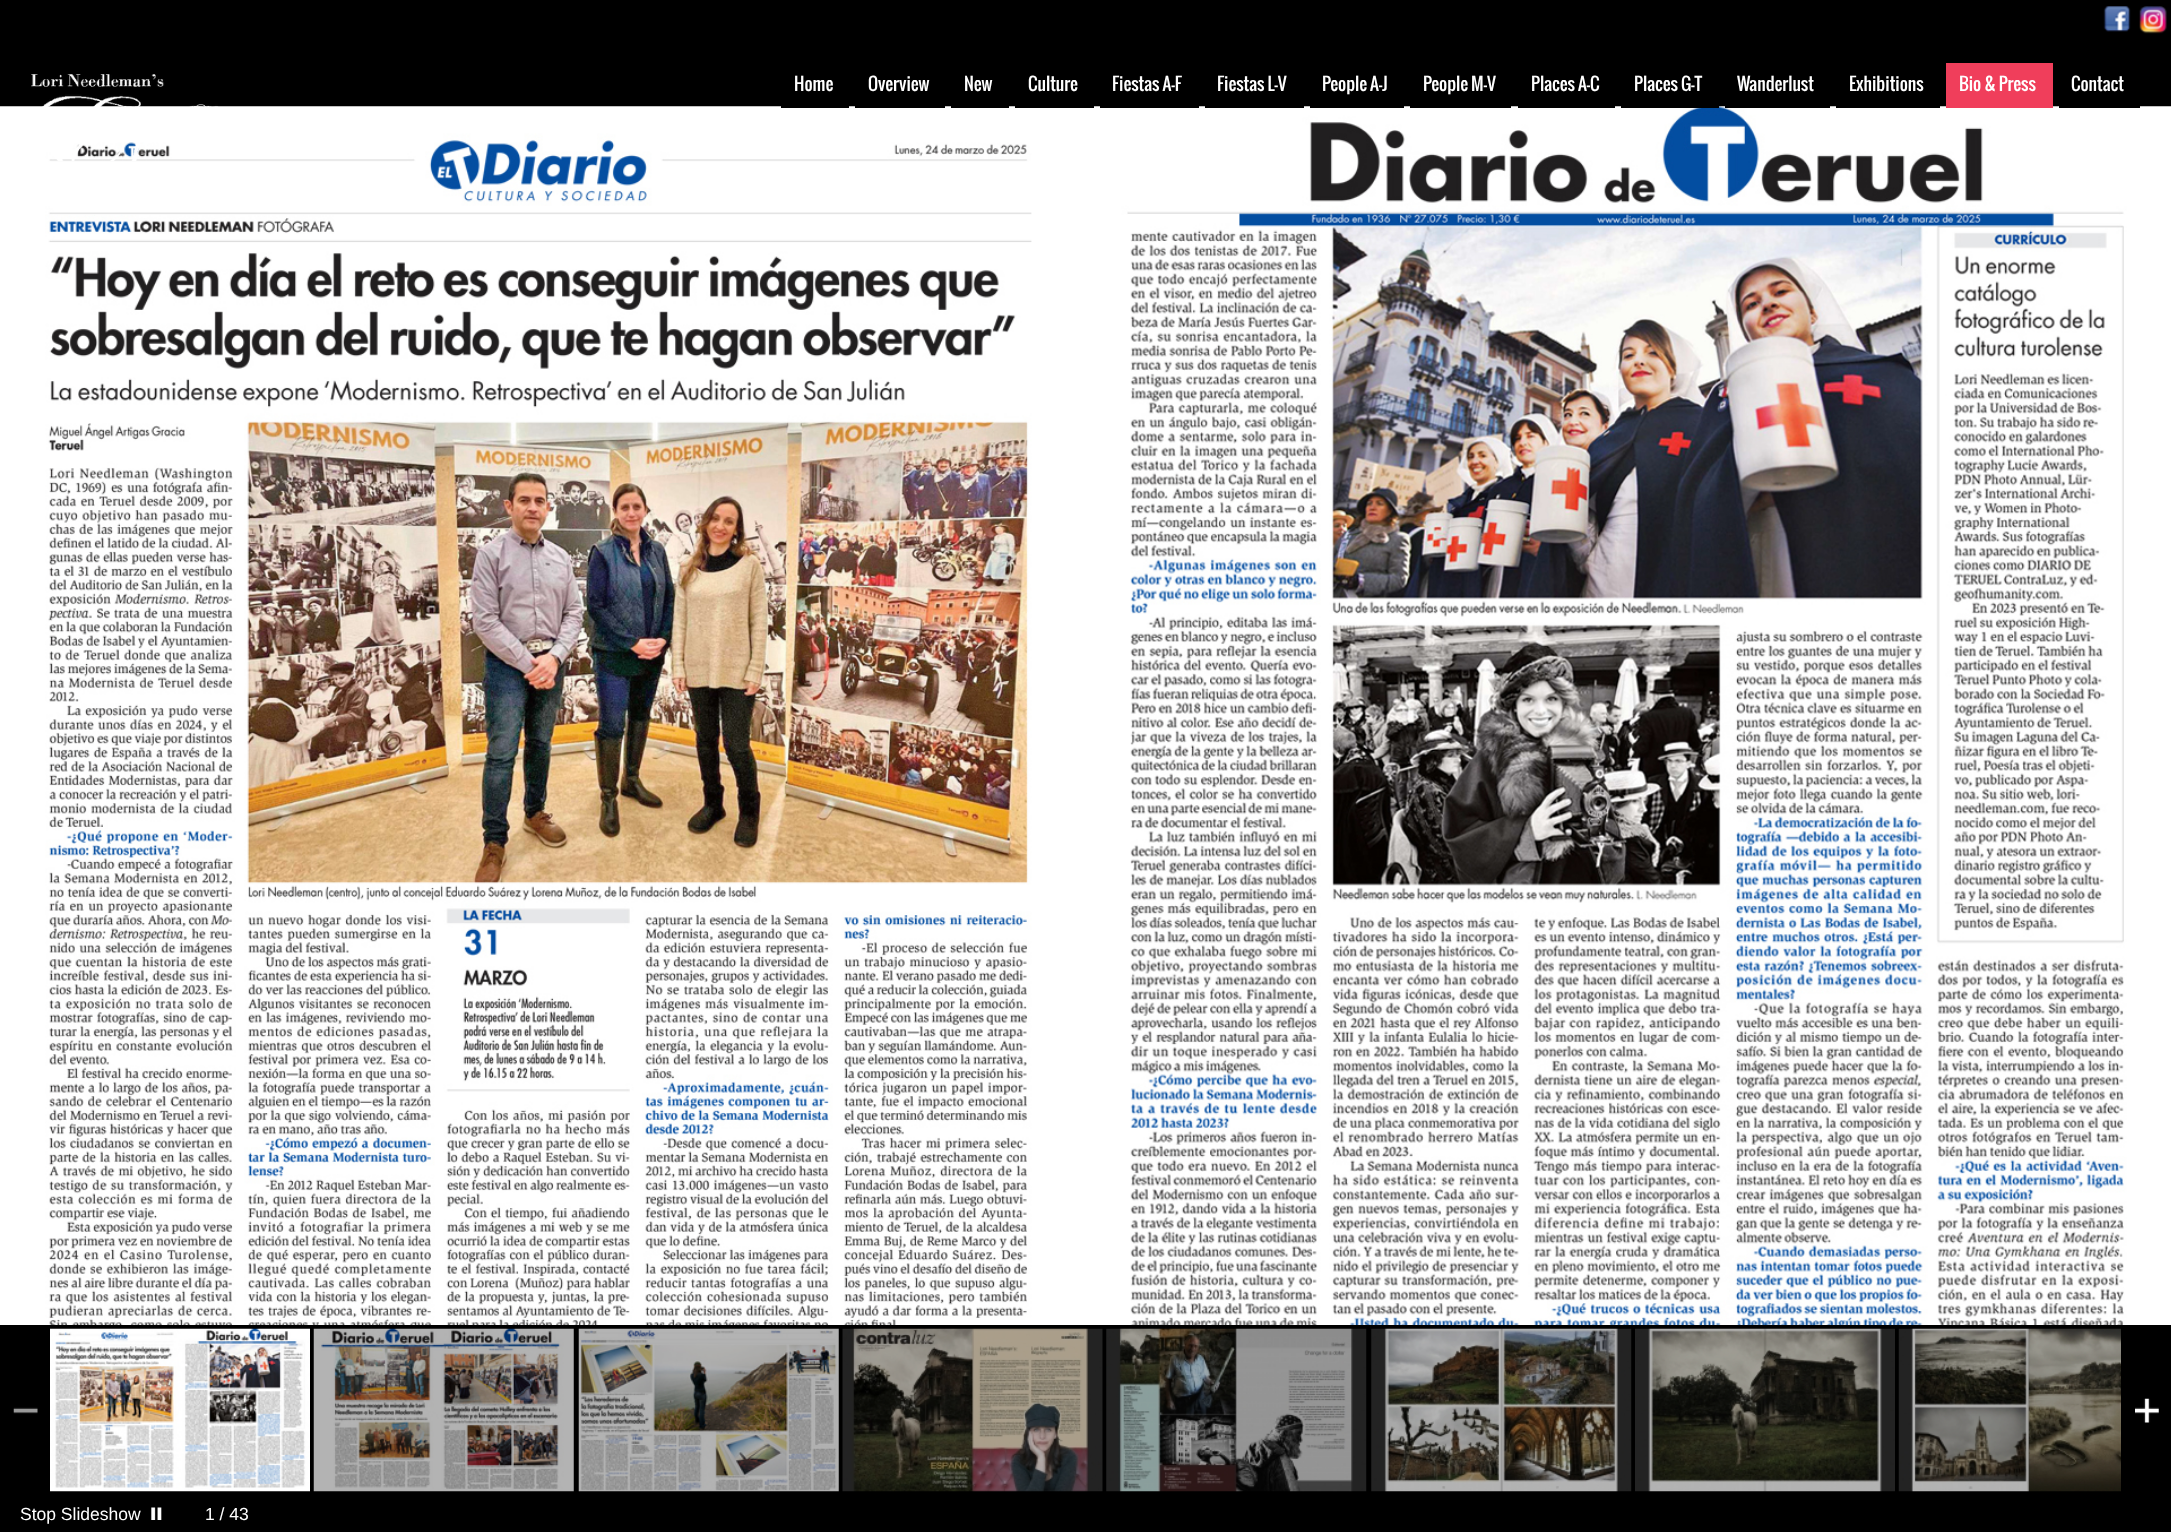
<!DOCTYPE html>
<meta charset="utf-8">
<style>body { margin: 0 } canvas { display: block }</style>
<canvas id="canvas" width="2171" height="1532"></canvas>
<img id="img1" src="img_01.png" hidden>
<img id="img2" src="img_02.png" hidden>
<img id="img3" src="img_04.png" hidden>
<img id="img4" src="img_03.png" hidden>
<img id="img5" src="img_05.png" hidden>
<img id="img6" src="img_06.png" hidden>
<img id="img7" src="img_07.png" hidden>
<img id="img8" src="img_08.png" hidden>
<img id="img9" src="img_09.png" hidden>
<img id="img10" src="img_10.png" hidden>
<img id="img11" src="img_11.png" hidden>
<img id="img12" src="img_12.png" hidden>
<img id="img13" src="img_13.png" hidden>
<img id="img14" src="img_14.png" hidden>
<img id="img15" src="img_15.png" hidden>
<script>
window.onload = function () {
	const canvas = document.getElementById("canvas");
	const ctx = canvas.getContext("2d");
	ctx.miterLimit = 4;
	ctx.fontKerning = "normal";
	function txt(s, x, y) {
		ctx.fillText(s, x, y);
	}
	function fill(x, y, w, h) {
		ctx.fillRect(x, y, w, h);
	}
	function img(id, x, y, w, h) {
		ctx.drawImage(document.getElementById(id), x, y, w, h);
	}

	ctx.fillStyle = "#000000";
	fill(0, 0, 2171, 1532);
	img("img1", 2103, 6, 28, 26);
	img("img2", 2139, 6, 28, 28);
	img("img3", 0, 106, 2171, 1219);
	img("img4", 31, 74, 188, 87);
	fill(781, 106, 68, 2);
	fill(855, 106, 90, 2);
	fill(951, 106, 58, 2);
	fill(1015, 106, 79, 2);
	fill(1100, 106, 99, 2);
	fill(1205, 106, 99, 2);
	fill(1310, 106, 94, 2);
	fill(1410, 106, 101, 2);
	fill(1518, 106, 97, 2);
	fill(1621, 106, 98, 2);
	fill(1725, 106, 105, 2);
	fill(1836, 106, 104, 2);
	ctx.fillStyle = "#F03E5B";
	fill(1946, 63, 107, 45);
	ctx.fillStyle = "#000000";
	fill(2059, 106, 81, 2);
	img("img5", 13, 1407, 25, 7);
	img("img6", 50, 1328, 260, 164);
	img("img7", 313, 1328, 261, 164);
	img("img8", 578, 1328, 261, 164);
	img("img9", 842, 1328, 261, 164);
	img("img10", 1106, 1328, 261, 164);
	img("img11", 1371, 1328, 261, 164);
	img("img12", 1635, 1328, 260, 164);
	img("img13", 1898, 1328, 223, 164);
	img("img14", 2135, 1398, 24, 25);
	img("img15", 151, 1507, 11, 13);
	ctx.font = "17.5px Oswald";
	ctx.fillStyle = "#FFFFFF";
	txt("Home", 794, 91);
	txt("Overview", 868, 91);
	txt("New", 964, 91);
	txt("Culture", 1028, 91);
	txt("Fiestas A-F", 1112, 91);
	txt("Fiestas L-V", 1217, 91);
	txt("People A-J", 1322, 91);
	txt("People M-V", 1423, 91);
	txt("Places A-C", 1531, 91);
	txt("Places G-T", 1634, 91);
	txt("Wanderlust", 1737, 91);
	txt("Exhibitions", 1849, 91);
	txt("Bio & Press", 1959, 91);
	txt("Contact", 2071, 91);
	ctx.font = "17.5px Liberation Sans";
	txt("Stop Slideshow", 20, 1520);
	txt("1 / 43", 205, 1520);
};
</script>
